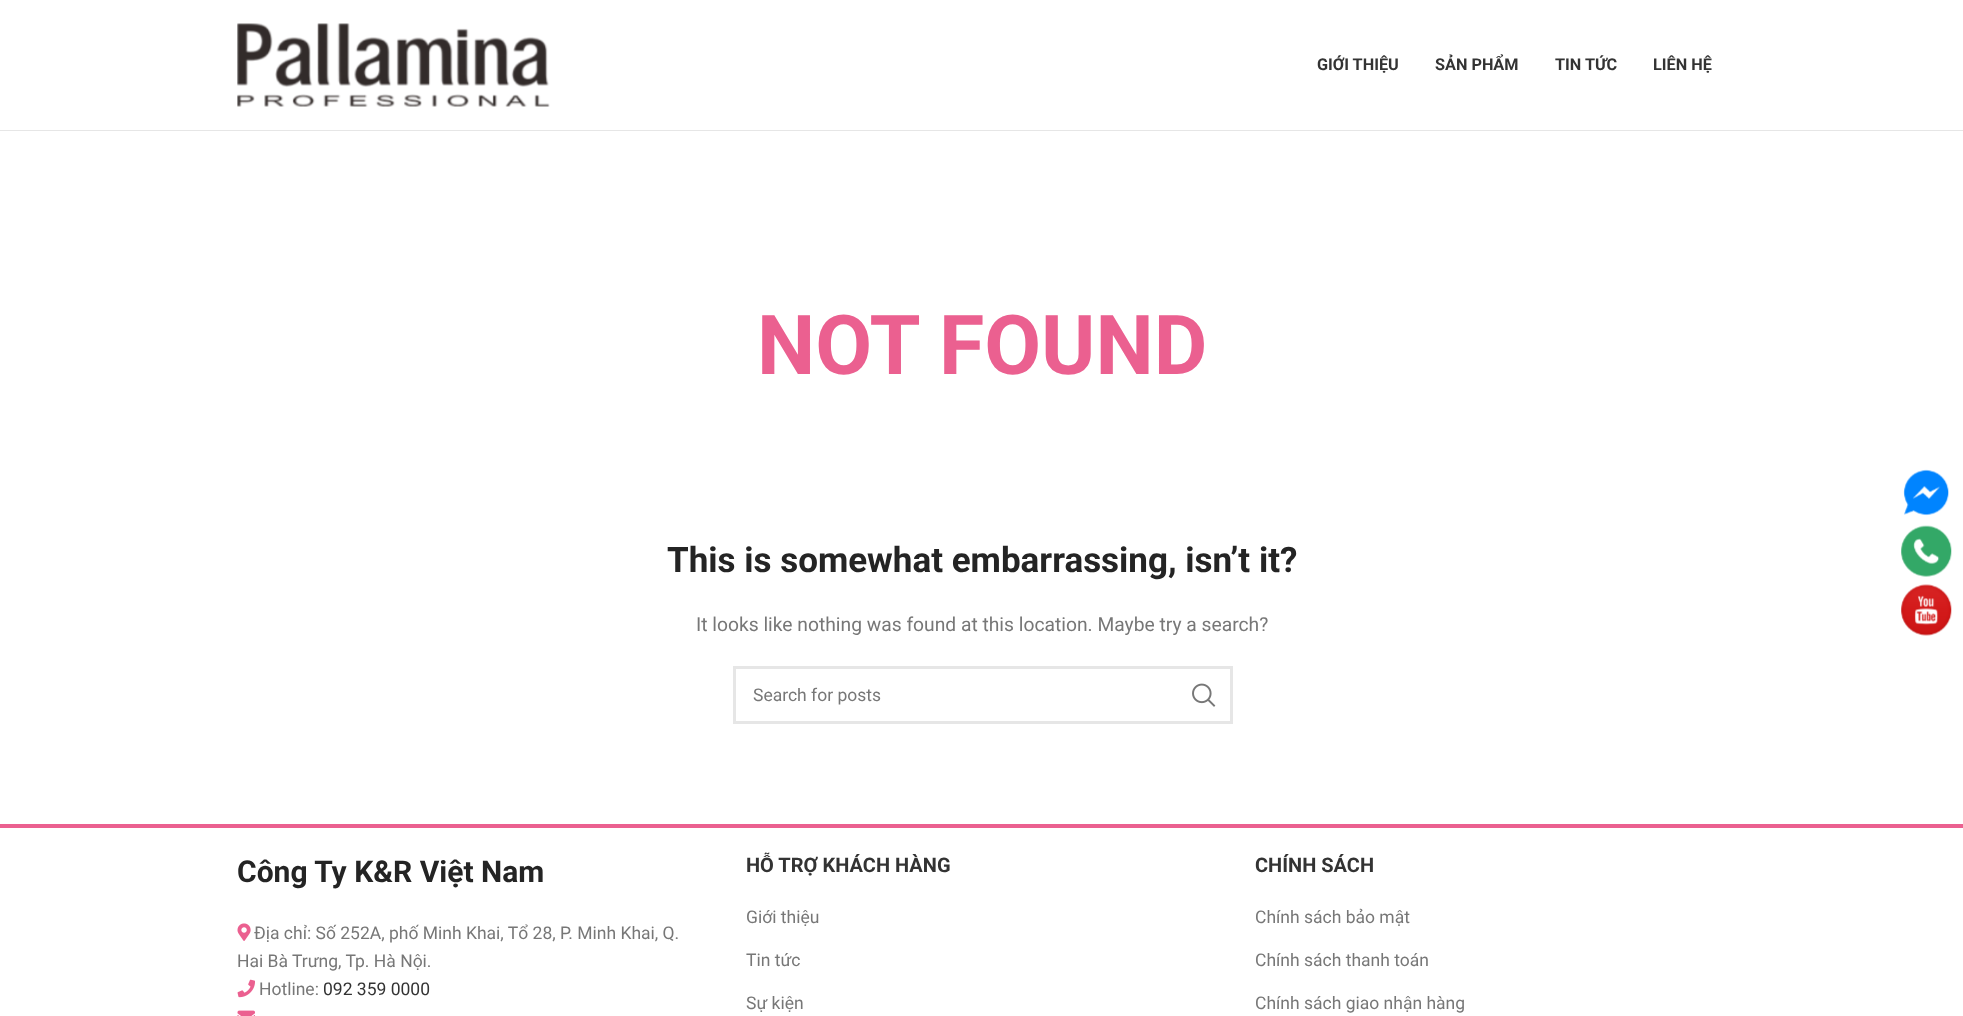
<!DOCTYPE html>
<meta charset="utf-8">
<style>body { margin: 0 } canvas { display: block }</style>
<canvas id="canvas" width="1963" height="1016"></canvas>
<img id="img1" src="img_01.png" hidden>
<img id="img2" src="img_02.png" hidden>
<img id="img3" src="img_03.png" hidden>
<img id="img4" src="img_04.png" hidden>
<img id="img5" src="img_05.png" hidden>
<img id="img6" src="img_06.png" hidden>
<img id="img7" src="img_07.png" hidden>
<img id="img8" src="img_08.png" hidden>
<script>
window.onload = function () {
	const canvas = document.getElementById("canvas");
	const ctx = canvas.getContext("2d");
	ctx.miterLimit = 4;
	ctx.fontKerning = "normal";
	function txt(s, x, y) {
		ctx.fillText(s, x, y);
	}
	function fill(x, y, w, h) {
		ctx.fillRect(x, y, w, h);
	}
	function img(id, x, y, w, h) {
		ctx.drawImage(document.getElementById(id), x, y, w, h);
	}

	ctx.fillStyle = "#FFFFFF";
	fill(0, 0, 1963, 1016);
	ctx.fillStyle = "#E6E6E6";
	fill(0, 130, 1963, 1);
	img("img1", 237, 23, 313, 84);
	ctx.strokeStyle = "#E6E6E6";
	ctx.lineWidth = 3;
	ctx.strokeRect(734.5, 667.5, 497, 55);
	img("img2", 1192, 683, 24, 24);
	ctx.fillStyle = "#EB6090";
	fill(0, 824, 1963, 4);
	img("img3", 237, 923, 14, 18);
	img("img4", 237, 979, 18, 19);
	img("img5", 237, 1010, 18, 6);
	img("img6", 1903, 469, 46, 47);
	img("img7", 1901, 525, 51, 52);
	img("img8", 1901, 584, 51, 52);
	ctx.font = "bold 16.25px Roboto";
	ctx.fillStyle = "#333333";
	txt("GIỚI THIỆU", 1317, 70);
	txt("SẢN PHẨM", 1435, 70);
	txt("TIN TỨC", 1555, 70);
	txt("LIÊN HỆ", 1653, 70);
	ctx.font = "bold 82.5px Roboto";
	ctx.fillStyle = "#EB6090";
	txt("NOT FOUND", 757, 374);
	ctx.font = "bold 35px Roboto";
	ctx.fillStyle = "#242424";
	txt("This is somewhat embarrassing, isn’t it?", 667, 572);
	ctx.font = "19.25px Roboto";
	ctx.fillStyle = "#777777";
	txt("It looks like nothing was found at this location. Maybe try a search?", 696, 631);
	ctx.font = "17.5px Roboto";
	txt("Search for posts", 753, 701);
	ctx.font = "bold 30px Roboto";
	ctx.fillStyle = "#242424";
	txt("Công Ty K&R Việt Nam", 237, 882);
	ctx.font = "17.5px Roboto";
	ctx.fillStyle = "#777777";
	txt("Địa chỉ: Số 252A, phố Minh Khai, Tổ 28, P. Minh Khai, Q.", 254, 939);
	txt("Hai Bà Trưng, Tp. Hà Nội.", 237, 967);
	txt("Hotline:", 259, 995);
	ctx.fillStyle = "#333333";
	txt("092 359 0000", 323, 995);
	ctx.font = "bold 20px Roboto";
	txt("HỖ TRỢ KHÁCH HÀNG", 746, 872);
	ctx.font = "17.5px Roboto";
	ctx.fillStyle = "#777777";
	txt("Giới thiệu", 746, 923);
	txt("Tin tức", 746, 966);
	txt("Sự kiện", 746, 1009);
	ctx.font = "bold 20px Roboto";
	ctx.fillStyle = "#333333";
	txt("CHÍNH SÁCH", 1255, 872);
	ctx.font = "17.5px Roboto";
	ctx.fillStyle = "#777777";
	txt("Chính sách bảo mật", 1255, 923);
	txt("Chính sách thanh toán", 1255, 966);
	txt("Chính sách giao nhận hàng", 1255, 1009);
};
</script>
